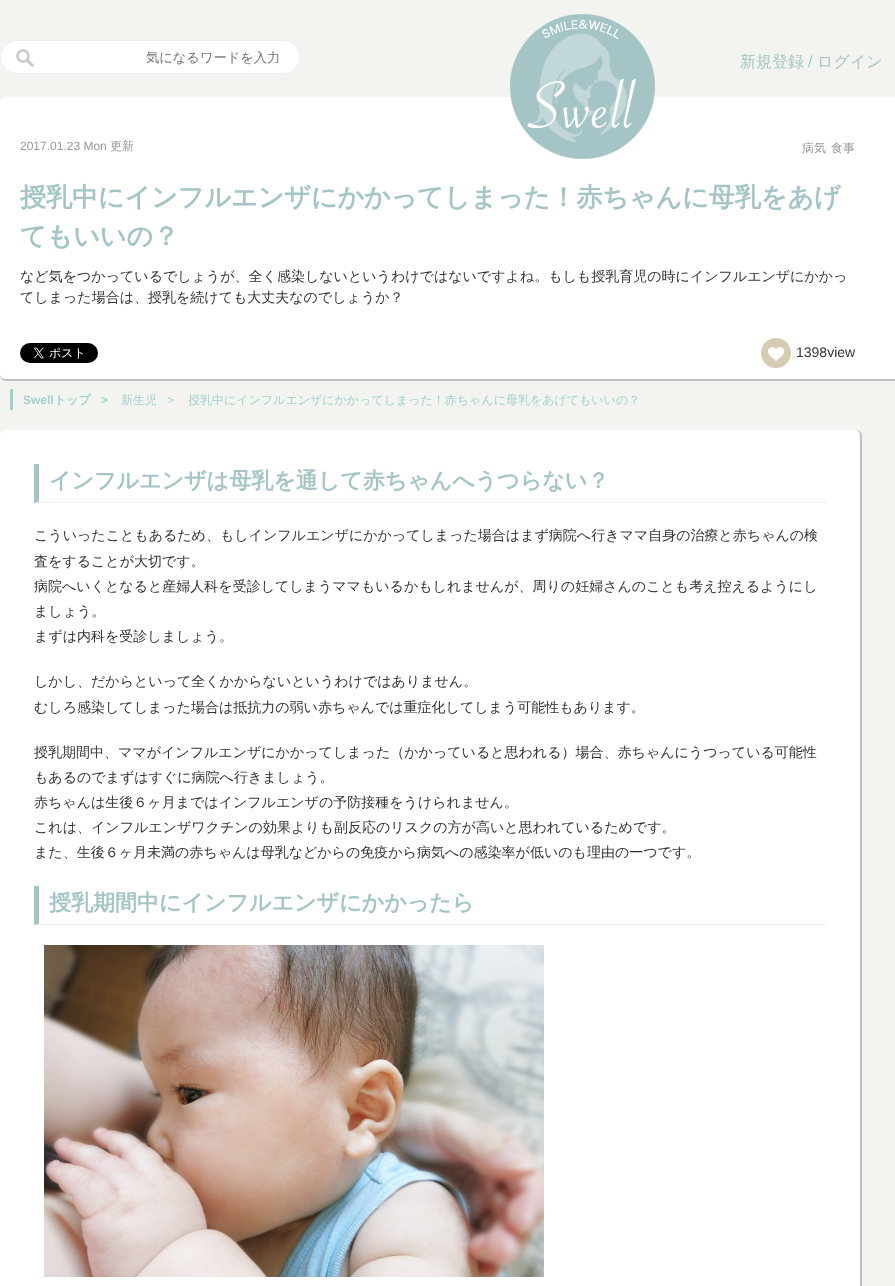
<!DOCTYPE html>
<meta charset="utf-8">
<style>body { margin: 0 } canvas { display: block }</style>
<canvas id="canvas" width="895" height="1286"></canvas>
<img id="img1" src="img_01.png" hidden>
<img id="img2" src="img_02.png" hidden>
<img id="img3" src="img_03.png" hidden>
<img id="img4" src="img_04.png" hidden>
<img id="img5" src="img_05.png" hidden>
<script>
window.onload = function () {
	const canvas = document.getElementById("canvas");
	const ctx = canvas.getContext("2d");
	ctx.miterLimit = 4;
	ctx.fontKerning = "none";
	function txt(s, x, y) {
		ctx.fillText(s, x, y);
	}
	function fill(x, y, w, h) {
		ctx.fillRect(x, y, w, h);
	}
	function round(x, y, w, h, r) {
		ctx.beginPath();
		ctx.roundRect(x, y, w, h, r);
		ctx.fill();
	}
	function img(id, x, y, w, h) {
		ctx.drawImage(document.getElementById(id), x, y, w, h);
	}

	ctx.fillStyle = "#F3F4EF";
	fill(0, 0, 895, 1286);
	ctx.fillStyle = "#FFFFFF";
	ctx.beginPath();
	ctx.roundRect(0.5, 40.5, 299, 33, 16.5);
	ctx.fill();
	ctx.strokeStyle = "#EFEFEF";
	ctx.stroke();
	img("img1", 16, 49, 18, 18);
	ctx.fillStyle = "rgba(107, 107, 107, 0.39)";
	ctx.filter = "blur(0.5px)";
	ctx.beginPath();
	ctx.roundRect(0, 97, 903, 284, 6);
	ctx.fill();
	ctx.filter = "none";
	ctx.fillStyle = "#FFFFFF";
	round(0, 97, 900, 282, 5);
	img("img2", 510, 14, 145, 145);
	img("img3", 20, 343, 78, 20);
	img("img4", 761, 338, 30, 30);
	ctx.fillStyle = "#A2D0D1";
	fill(10, 389, 3, 21);
	ctx.fillStyle = "rgba(107, 107, 107, 0.39)";
	ctx.filter = "blur(0.5px)";
	ctx.beginPath();
	ctx.roundRect(0, 430, 862, 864, 6);
	ctx.fill();
	ctx.filter = "none";
	ctx.fillStyle = "#FFFFFF";
	round(0, 430, 860, 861, 5);
	ctx.fillStyle = "#EEEEEE";
	ctx.beginPath();
	ctx.moveTo(826, 503);
	ctx.lineTo(34, 503);
	ctx.lineTo(39, 502);
	ctx.lineTo(826, 502);
	ctx.closePath();
	ctx.fill();
	ctx.fillStyle = "#A4C4C5";
	ctx.beginPath();
	ctx.moveTo(34, 503);
	ctx.lineTo(34, 464);
	ctx.lineTo(39, 464);
	ctx.lineTo(39, 502);
	ctx.closePath();
	ctx.fill();
	ctx.fillStyle = "#EEEEEE";
	ctx.beginPath();
	ctx.moveTo(826, 925);
	ctx.lineTo(34, 925);
	ctx.lineTo(39, 924);
	ctx.lineTo(826, 924);
	ctx.closePath();
	ctx.fill();
	ctx.fillStyle = "#A4C4C5";
	ctx.beginPath();
	ctx.moveTo(34, 925);
	ctx.lineTo(34, 886);
	ctx.lineTo(39, 886);
	ctx.lineTo(39, 924);
	ctx.closePath();
	ctx.fill();
	img("img5", 44, 945, 500, 332);
	ctx.font = "500 13.25px WenQuanYi Zen Hei";
	ctx.fillStyle = "#757575";
	txt("気になるワードを入力", 146, 62);
	ctx.font = "500 16px WenQuanYi Zen Hei";
	ctx.fillStyle = "#A4C4C5";
	txt("新規登録", 740, 67);
	ctx.font = "16px Liberation Sans";
	txt("/", 808, 67);
	ctx.font = "500 16px WenQuanYi Zen Hei";
	txt("ログイン", 817, 67);
	ctx.font = "12px Liberation Sans";
	ctx.fillStyle = "#999999";
	txt("2017.01.23 Mon", 20, 150);
	ctx.font = "500 12px WenQuanYi Zen Hei";
	txt("更新", 110, 150);
	txt("病気", 802, 152);
	txt("食事", 831, 152);
	ctx.font = "bold 26px WenQuanYi Zen Hei";
	ctx.fillStyle = "#A4C4C5";
	txt("授乳中にインフルエンザにかかってしまった！赤ちゃんに母乳をあげ", 20, 206);
	txt("てもいいの？", 20, 245);
	ctx.font = "500 14px WenQuanYi Zen Hei";
	ctx.fillStyle = "#333333";
	txt("など気をつかっているでしょうが、全く感染しないというわけではないですよね。もしも授乳育児の時にインフルエンザにかかっ", 20, 281);
	txt("てしまった場合は、授乳を続けても大丈夫なのでしょうか？", 20, 302);
	ctx.font = "14px Liberation Sans";
	txt("1398view", 796, 357);
	ctx.font = "bold 12px Liberation Sans";
	ctx.fillStyle = "#A2D0D1";
	txt("Swell", 23, 404);
	ctx.font = "bold 12px WenQuanYi Zen Hei";
	txt("トップ", 54, 404);
	ctx.font = "bold 12px Liberation Sans";
	txt(">", 101, 404);
	ctx.font = "500 12px WenQuanYi Zen Hei";
	txt("新生児", 121, 404);
	ctx.font = "12px Liberation Sans";
	txt(">", 167, 404);
	ctx.font = "500 12px WenQuanYi Zen Hei";
	txt("授乳中にインフルエンザにかかってしまった！赤ちゃんに母乳をあげてもいいの？", 188, 404);
	ctx.font = "bold 22px WenQuanYi Zen Hei";
	ctx.fillStyle = "#A4C4C5";
	txt("インフルエンザは母乳を通して赤ちゃんへうつらない？", 49, 488);
	ctx.font = "500 14px WenQuanYi Zen Hei";
	ctx.fillStyle = "#333333";
	txt("こういったこともあるため、もしインフルエンザにかかってしまった場合はまず病院へ行きママ自身の治療と赤ちゃんの検", 34, 540);
	txt("査をすることが大切です。", 34, 566);
	txt("病院へいくとなると産婦人科を受診してしまうママもいるかもしれませんが、周りの妊婦さんのことも考え控えるようにし", 34, 591);
	txt("ましょう。", 34, 616);
	txt("まずは内科を受診しましょう。", 34, 641);
	txt("しかし、だからといって全くかからないというわけではありません。", 34, 686);
	txt("むしろ感染してしまった場合は抵抗力の弱い赤ちゃんでは重症化してしまう可能性もあります。", 34, 712);
	txt("授乳期間中、ママがインフルエンザにかかってしまった（かかっていると思われる）場合、赤ちゃんにうつっている可能性", 34, 757);
	txt("もあるのでまずはすぐに病院へ行きましょう。", 34, 782);
	txt("赤ちゃんは生後６ヶ月まではインフルエンザの予防接種をうけられません。", 34, 807);
	txt("これは、インフルエンザワクチンの効果よりも副反応のリスクの方が高いと思われているためです。", 34, 832);
	txt("また、生後６ヶ月未満の赤ちゃんは母乳などからの免疫から病気への感染率が低いのも理由の一つです。", 34, 857);
	ctx.font = "bold 22px WenQuanYi Zen Hei";
	ctx.fillStyle = "#A4C4C5";
	txt("授乳期間中にインフルエンザにかかったら", 49, 910);
};
</script>
